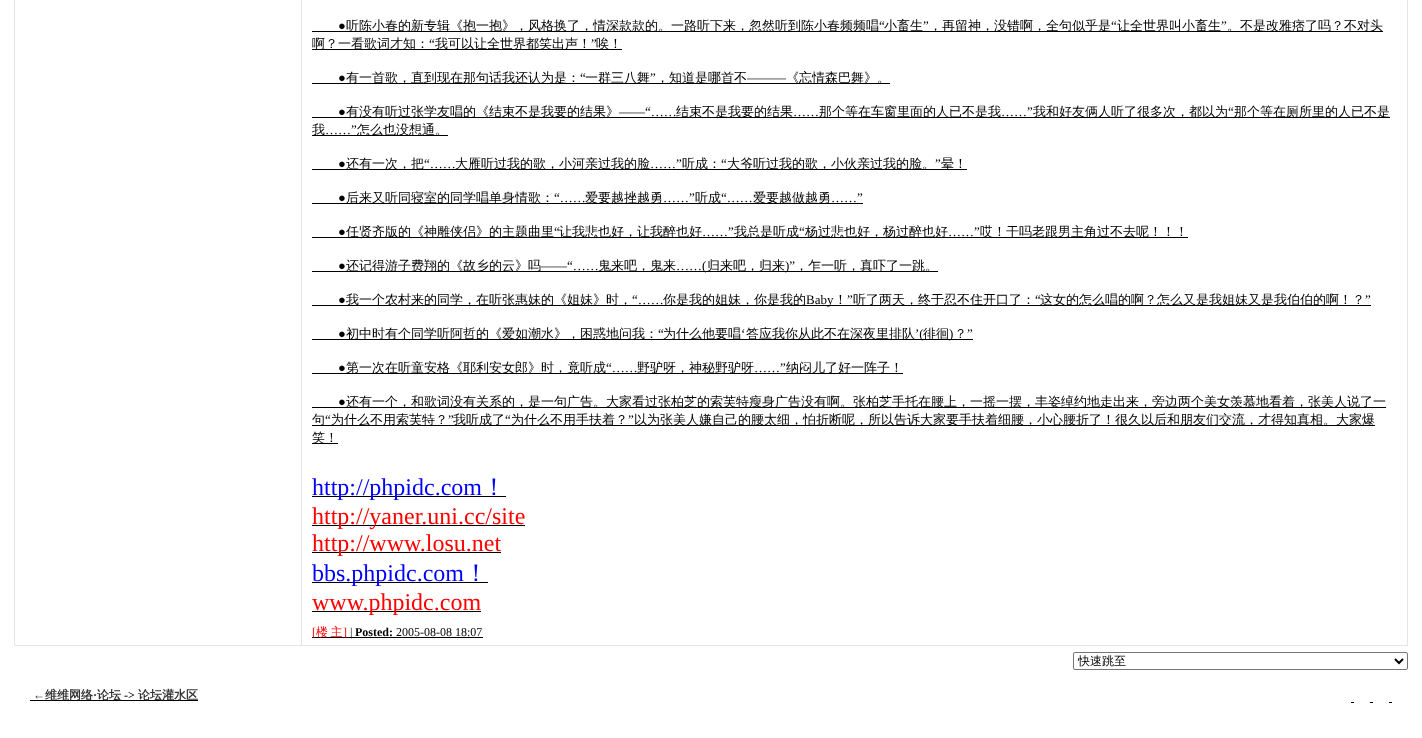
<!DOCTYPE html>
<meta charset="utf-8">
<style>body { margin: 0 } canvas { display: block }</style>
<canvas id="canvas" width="1422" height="738"></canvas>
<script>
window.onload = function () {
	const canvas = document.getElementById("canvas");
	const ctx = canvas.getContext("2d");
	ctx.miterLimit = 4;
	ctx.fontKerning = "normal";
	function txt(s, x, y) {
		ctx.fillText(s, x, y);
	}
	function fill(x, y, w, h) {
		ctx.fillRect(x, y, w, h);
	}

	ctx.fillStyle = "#FFFFFF";
	fill(0, 0, 1422, 738);
	ctx.fillStyle = "#E7E3E7";
	fill(14, 0, 1394, 646);
	ctx.fillStyle = "#FFFFFF";
	fill(15, 0, 286, 645);
	fill(302, 0, 1105, 645);
	ctx.fillStyle = "#000000";
	fill(312, 31, 1071, 1);
	fill(312, 49, 310, 1);
	fill(312, 83, 578, 1);
	fill(312, 117, 1078, 1);
	fill(312, 135, 136, 1);
	fill(312, 169, 655, 1);
	fill(312, 203, 551, 1);
	fill(312, 237, 876, 1);
	fill(312, 271, 626, 1);
	fill(312, 305, 1059, 1);
	fill(312, 339, 661, 1);
	fill(312, 373, 591, 1);
	fill(312, 407, 1074, 1);
	fill(312, 425, 1063, 1);
	fill(312, 443, 26, 1);
	fill(312, 496, 194, 1);
	fill(312, 525, 213, 1);
	fill(312, 552, 189, 1);
	fill(312, 582, 176, 1);
	fill(312, 611, 169, 1);
	fill(312, 637, 171, 1);
	ctx.beginPath();
	ctx.roundRect(1073.5, 652.5, 334, 17, 1.5);
	ctx.strokeStyle = "#767676";
	ctx.stroke();
	ctx.beginPath();
	ctx.moveTo(1395, 659);
	ctx.lineTo(1399, 663);
	ctx.lineTo(1403, 659);
	ctx.strokeStyle = "#000000";
	ctx.lineWidth = 2;
	ctx.stroke();
	fill(30, 700, 168, 1);
	fill(1351, 702, 3, 1);
	fill(1370, 702, 3, 1);
	fill(1389, 702, 3, 1);
	ctx.font = "13px Liberation Serif";
	txt("●", 338, 30);
	ctx.font = "500 13px WenQuanYi Zen Hei";
	txt("听陈小春的新专辑《抱一抱》，风格换了，情深款款的。一路听下来，忽然听到陈小春频频唱", 346, 30);
	ctx.font = "13px Liberation Serif";
	txt("“", 879, 30);
	ctx.font = "500 13px WenQuanYi Zen Hei";
	txt("小畜生", 884, 30);
	ctx.font = "13px Liberation Serif";
	txt("”", 923, 30);
	ctx.font = "500 13px WenQuanYi Zen Hei";
	txt("，再留神，没错啊，全句似乎是", 929, 30);
	ctx.font = "13px Liberation Serif";
	txt("“", 1111, 30);
	ctx.font = "500 13px WenQuanYi Zen Hei";
	txt("让全世界叫小畜生", 1117, 30);
	ctx.font = "13px Liberation Serif";
	txt("”", 1221, 30);
	ctx.font = "500 13px WenQuanYi Zen Hei";
	txt("。不是改雅痞了吗？不对头", 1227, 30);
	txt("啊？一看歌词才知：", 312, 48);
	ctx.font = "13px Liberation Serif";
	txt("“", 429, 48);
	ctx.font = "500 13px WenQuanYi Zen Hei";
	txt("我可以让全世界都笑出声！", 435, 48);
	ctx.font = "13px Liberation Serif";
	txt("”", 591, 48);
	ctx.font = "500 13px WenQuanYi Zen Hei";
	txt("唉！", 596, 48);
	ctx.font = "13px Liberation Serif";
	txt("●", 338, 82);
	ctx.font = "500 13px WenQuanYi Zen Hei";
	txt("有一首歌，直到现在那句话我还认为是：", 346, 82);
	ctx.font = "13px Liberation Serif";
	txt("“", 580, 82);
	ctx.font = "500 13px WenQuanYi Zen Hei";
	txt("一群三八舞", 585, 82);
	ctx.font = "13px Liberation Serif";
	txt("”", 650, 82);
	ctx.font = "500 13px WenQuanYi Zen Hei";
	txt("，知道是哪首不", 656, 82);
	ctx.font = "13px Liberation Serif";
	txt("———", 747, 82);
	ctx.font = "500 13px WenQuanYi Zen Hei";
	txt("《忘情森巴舞》。", 786, 82);
	ctx.font = "13px Liberation Serif";
	txt("●", 338, 116);
	ctx.font = "500 13px WenQuanYi Zen Hei";
	txt("有没有听过张学友唱的《结束不是我要的结果》", 346, 116);
	ctx.font = "13px Liberation Serif";
	txt("——“……", 619, 116);
	ctx.font = "500 13px WenQuanYi Zen Hei";
	txt("结束不是我要的结果", 676, 116);
	ctx.font = "13px Liberation Serif";
	txt("……", 793, 116);
	ctx.font = "500 13px WenQuanYi Zen Hei";
	txt("那个等在车窗里面的人已不是我", 819, 116);
	ctx.font = "13px Liberation Serif";
	txt("……”", 1001, 116);
	ctx.font = "500 13px WenQuanYi Zen Hei";
	txt("我和好友俩人听了很多次，都以为", 1033, 116);
	ctx.font = "13px Liberation Serif";
	txt("“", 1228, 116);
	ctx.font = "500 13px WenQuanYi Zen Hei";
	txt("那个等在厕所里的人已不是", 1234, 116);
	txt("我", 312, 134);
	ctx.font = "13px Liberation Serif";
	txt("……”", 325, 134);
	ctx.font = "500 13px WenQuanYi Zen Hei";
	txt("怎么也没想通。", 357, 134);
	ctx.font = "13px Liberation Serif";
	txt("●", 338, 168);
	ctx.font = "500 13px WenQuanYi Zen Hei";
	txt("还有一次，把", 346, 168);
	ctx.font = "13px Liberation Serif";
	txt("“……", 424, 168);
	ctx.font = "500 13px WenQuanYi Zen Hei";
	txt("大雁听过我的歌，小河亲过我的脸", 455, 168);
	ctx.font = "13px Liberation Serif";
	txt("……”", 650, 168);
	ctx.font = "500 13px WenQuanYi Zen Hei";
	txt("听成：", 682, 168);
	ctx.font = "13px Liberation Serif";
	txt("“", 721, 168);
	ctx.font = "500 13px WenQuanYi Zen Hei";
	txt("大爷听过我的歌，小伙亲过我的脸。", 727, 168);
	ctx.font = "13px Liberation Serif";
	txt("”", 935, 168);
	ctx.font = "500 13px WenQuanYi Zen Hei";
	txt("晕！", 941, 168);
	ctx.font = "13px Liberation Serif";
	txt("●", 338, 202);
	ctx.font = "500 13px WenQuanYi Zen Hei";
	txt("后来又听同寝室的同学唱单身情歌：", 346, 202);
	ctx.font = "13px Liberation Serif";
	txt("“……", 554, 202);
	ctx.font = "500 13px WenQuanYi Zen Hei";
	txt("爱要越挫越勇", 585, 202);
	ctx.font = "13px Liberation Serif";
	txt("……”", 663, 202);
	ctx.font = "500 13px WenQuanYi Zen Hei";
	txt("听成", 695, 202);
	ctx.font = "13px Liberation Serif";
	txt("“……", 721, 202);
	ctx.font = "500 13px WenQuanYi Zen Hei";
	txt("爱要越做越勇", 753, 202);
	ctx.font = "13px Liberation Serif";
	txt("……”", 831, 202);
	txt("●", 338, 236);
	ctx.font = "500 13px WenQuanYi Zen Hei";
	txt("任贤齐版的《神雕侠侣》的主题曲里", 346, 236);
	ctx.font = "13px Liberation Serif";
	txt("“", 554, 236);
	ctx.font = "500 13px WenQuanYi Zen Hei";
	txt("让我悲也好，让我醉也好", 559, 236);
	ctx.font = "13px Liberation Serif";
	txt("……”", 702, 236);
	ctx.font = "500 13px WenQuanYi Zen Hei";
	txt("我总是听成", 734, 236);
	ctx.font = "13px Liberation Serif";
	txt("“", 799, 236);
	ctx.font = "500 13px WenQuanYi Zen Hei";
	txt("杨过悲也好，杨过醉也好", 805, 236);
	ctx.font = "13px Liberation Serif";
	txt("……”", 948, 236);
	ctx.font = "500 13px WenQuanYi Zen Hei";
	txt("哎！干吗老跟男主角过不去呢！！！", 980, 236);
	ctx.font = "13px Liberation Serif";
	txt("●", 338, 270);
	ctx.font = "500 13px WenQuanYi Zen Hei";
	txt("还记得游子费翔的《故乡的云》吗", 346, 270);
	ctx.font = "13px Liberation Serif";
	txt("——“……", 541, 270);
	ctx.font = "500 13px WenQuanYi Zen Hei";
	txt("鬼来吧，鬼来", 598, 270);
	ctx.font = "13px Liberation Serif";
	txt("……(", 676, 270);
	ctx.font = "500 13px WenQuanYi Zen Hei";
	txt("归来吧，归来", 707, 270);
	ctx.font = "13px Liberation Serif";
	txt(")”", 785, 270);
	ctx.font = "500 13px WenQuanYi Zen Hei";
	txt("，乍一听，真吓了一跳。", 795, 270);
	ctx.font = "13px Liberation Serif";
	txt("●", 338, 304);
	ctx.font = "500 13px WenQuanYi Zen Hei";
	txt("我一个农村来的同学，在听张惠妹的《姐妹》时，", 346, 304);
	ctx.font = "13px Liberation Serif";
	txt("“……", 632, 304);
	ctx.font = "500 13px WenQuanYi Zen Hei";
	txt("你是我的姐妹，你是我的", 663, 304);
	ctx.font = "13px Liberation Serif";
	txt("Baby", 806, 304);
	ctx.font = "500 13px WenQuanYi Zen Hei";
	txt("！", 834, 304);
	ctx.font = "13px Liberation Serif";
	txt("”", 847, 304);
	ctx.font = "500 13px WenQuanYi Zen Hei";
	txt("听了两天，终于忍不住开口了：", 853, 304);
	ctx.font = "13px Liberation Serif";
	txt("“", 1035, 304);
	ctx.font = "500 13px WenQuanYi Zen Hei";
	txt("这女的怎么唱的啊？怎么又是我姐妹又是我伯伯的啊！？", 1040, 304);
	ctx.font = "13px Liberation Serif";
	txt("”", 1365, 304);
	txt("●", 338, 338);
	ctx.font = "500 13px WenQuanYi Zen Hei";
	txt("初中时有个同学听阿哲的《爱如潮水》，困惑地问我：", 346, 338);
	ctx.font = "13px Liberation Serif";
	txt("“", 658, 338);
	ctx.font = "500 13px WenQuanYi Zen Hei";
	txt("为什么他要唱", 663, 338);
	ctx.font = "13px Liberation Serif";
	txt("‘", 741, 338);
	ctx.font = "500 13px WenQuanYi Zen Hei";
	txt("答应我你从此不在深夜里排队", 746, 338);
	ctx.font = "13px Liberation Serif";
	txt("’(", 915, 338);
	ctx.font = "500 13px WenQuanYi Zen Hei";
	txt("徘徊", 923, 338);
	ctx.font = "13px Liberation Serif";
	txt(")", 949, 338);
	ctx.font = "500 13px WenQuanYi Zen Hei";
	txt("？", 954, 338);
	ctx.font = "13px Liberation Serif";
	txt("”", 967, 338);
	txt("●", 338, 372);
	ctx.font = "500 13px WenQuanYi Zen Hei";
	txt("第一次在听童安格《耶利安女郎》时，竟听成", 346, 372);
	ctx.font = "13px Liberation Serif";
	txt("“……", 606, 372);
	ctx.font = "500 13px WenQuanYi Zen Hei";
	txt("野驴呀，神秘野驴呀", 637, 372);
	ctx.font = "13px Liberation Serif";
	txt("……”", 754, 372);
	ctx.font = "500 13px WenQuanYi Zen Hei";
	txt("纳闷儿了好一阵子！", 786, 372);
	ctx.font = "13px Liberation Serif";
	txt("●", 338, 406);
	ctx.font = "500 13px WenQuanYi Zen Hei";
	txt("还有一个，和歌词没有关系的，是一句广告。大家看过张柏芝的索芙特瘦身广告没有啊。张柏芝手托在腰上，一摇一摆，丰姿绰约地走出来，旁边两个美女羡慕地看着，张美人说了一", 346, 406);
	txt("句", 312, 424);
	ctx.font = "13px Liberation Serif";
	txt("“", 325, 424);
	ctx.font = "500 13px WenQuanYi Zen Hei";
	txt("为什么不用索芙特？", 331, 424);
	ctx.font = "13px Liberation Serif";
	txt("”", 448, 424);
	ctx.font = "500 13px WenQuanYi Zen Hei";
	txt("我听成了", 453, 424);
	ctx.font = "13px Liberation Serif";
	txt("“", 505, 424);
	ctx.font = "500 13px WenQuanYi Zen Hei";
	txt("为什么不用手扶着？", 511, 424);
	ctx.font = "13px Liberation Serif";
	txt("”", 628, 424);
	ctx.font = "500 13px WenQuanYi Zen Hei";
	txt("以为张美人嫌自己的腰太细，怕折断呢，所以告诉大家要手扶着细腰，小心腰折了！很久以后和朋友们交流，才得知真相。大家爆", 634, 424);
	txt("笑！", 312, 442);
	ctx.font = "24px Liberation Serif";
	ctx.fillStyle = "#0000FF";
	txt("http://phpidc.com", 312, 495);
	ctx.font = "500 24px WenQuanYi Zen Hei";
	txt("！", 482, 495);
	ctx.font = "24px Liberation Serif";
	ctx.fillStyle = "#FF0000";
	txt("http://yaner.uni.cc/site", 312, 524);
	txt("http://www.losu.net", 312, 551);
	ctx.fillStyle = "#0000FF";
	txt("bbs.phpidc.com", 312, 581);
	ctx.font = "500 24px WenQuanYi Zen Hei";
	txt("！", 464, 581);
	ctx.font = "24px Liberation Serif";
	ctx.fillStyle = "#FF0000";
	txt("www.phpidc.com", 312, 610);
	ctx.font = "12px Liberation Serif";
	txt("[", 312, 636);
	ctx.wordSpacing = "-1px";
	ctx.font = "500 12px WenQuanYi Zen Hei";
	txt("楼 主", 316, 636);
	ctx.wordSpacing = "0px";
	ctx.font = "12px Liberation Serif";
	txt("]", 343, 636);
	ctx.fillStyle = "#000000";
	txt("|", 350, 636);
	ctx.font = "bold 12px Liberation Serif";
	txt("Posted:", 355, 636);
	ctx.font = "12px Liberation Serif";
	txt("2005-08-08 18:07", 396, 636);
	ctx.font = "500 12px WenQuanYi Zen Hei";
	txt("快速跳至", 1078, 665);
	ctx.font = "bold 12px Liberation Serif";
	ctx.fillStyle = "#333333";
	txt("←", 33, 699);
	ctx.font = "bold 12px WenQuanYi Zen Hei";
	txt("维维网络", 45, 699);
	ctx.font = "bold 12px Liberation Serif";
	txt("·", 93, 699);
	ctx.font = "bold 12px WenQuanYi Zen Hei";
	txt("论坛", 97, 699);
	ctx.font = "bold 12px Liberation Serif";
	ctx.fillStyle = "#000000";
	txt("->", 124, 699);
	ctx.font = "bold 12px WenQuanYi Zen Hei";
	ctx.fillStyle = "#333333";
	txt("论坛灌水区", 138, 699);
};
</script>
